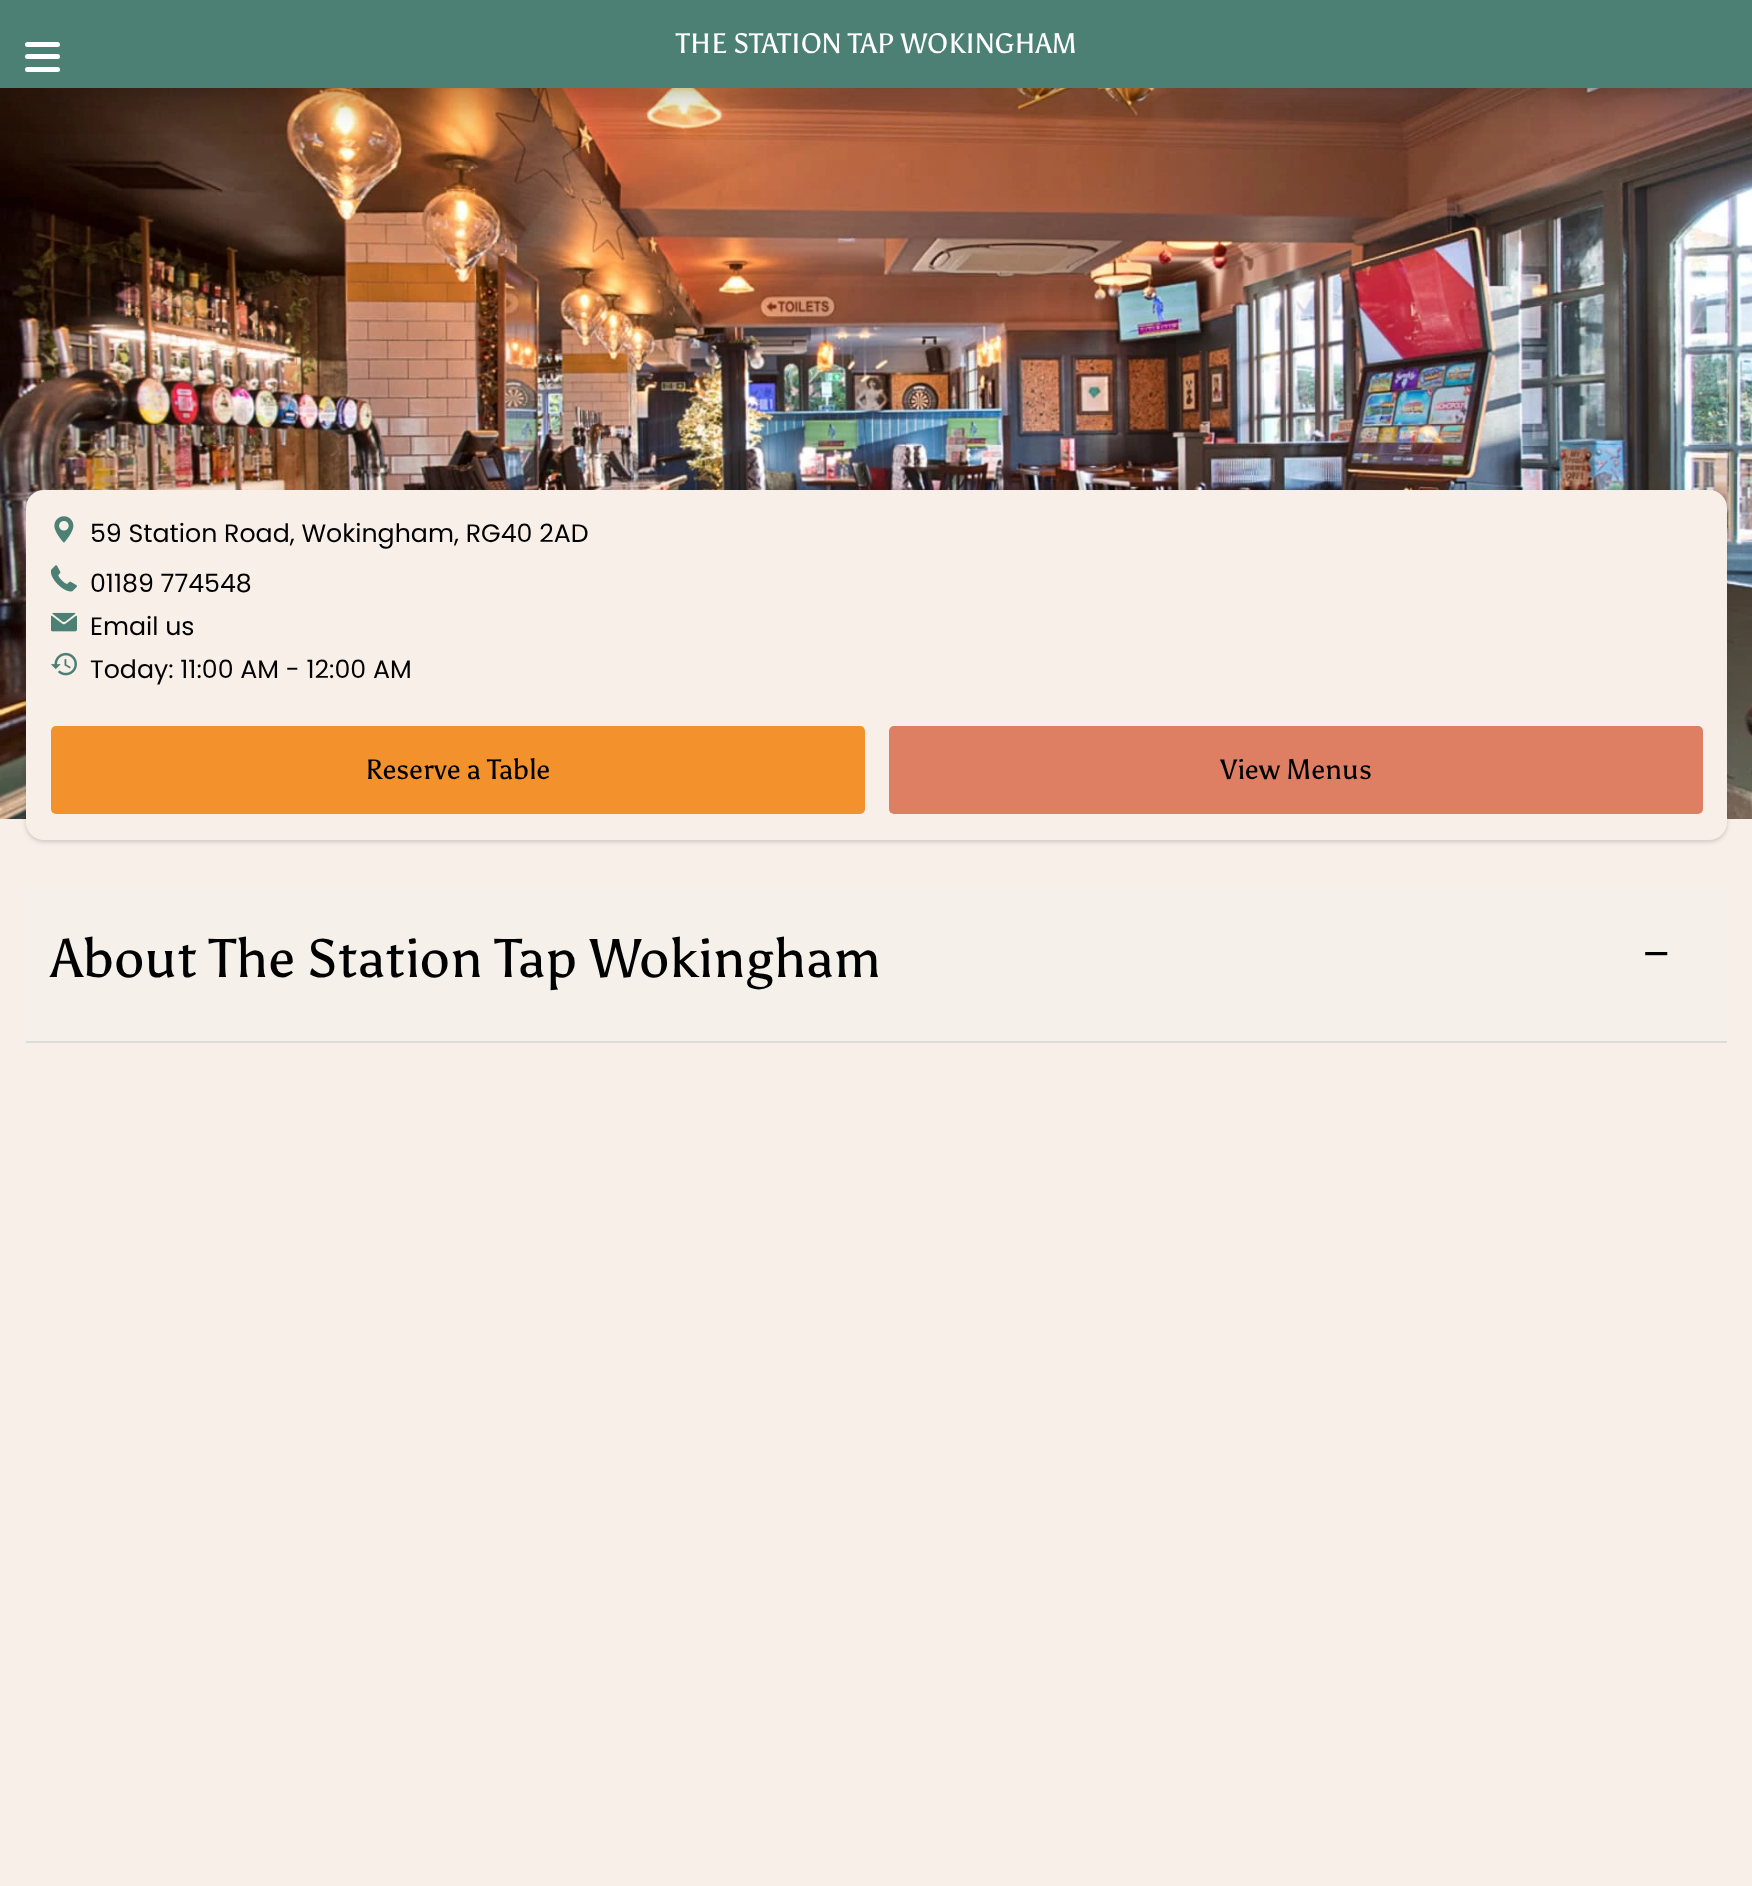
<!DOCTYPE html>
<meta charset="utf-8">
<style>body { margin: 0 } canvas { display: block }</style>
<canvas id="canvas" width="1752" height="1886"></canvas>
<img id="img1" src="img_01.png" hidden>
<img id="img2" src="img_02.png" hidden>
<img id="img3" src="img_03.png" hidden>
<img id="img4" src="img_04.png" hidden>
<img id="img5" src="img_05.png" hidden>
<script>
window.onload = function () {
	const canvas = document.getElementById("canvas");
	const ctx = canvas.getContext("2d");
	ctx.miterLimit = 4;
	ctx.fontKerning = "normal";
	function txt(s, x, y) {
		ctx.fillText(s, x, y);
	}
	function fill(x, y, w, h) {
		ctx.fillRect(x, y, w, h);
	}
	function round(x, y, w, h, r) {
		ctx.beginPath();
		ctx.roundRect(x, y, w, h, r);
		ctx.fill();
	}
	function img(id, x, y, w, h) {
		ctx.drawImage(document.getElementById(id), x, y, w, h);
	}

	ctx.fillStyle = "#F8EFE9";
	fill(0, 0, 1752, 1886);
	img("img1", 0, 88, 1752, 731);
	ctx.fillStyle = "rgba(0, 0, 0, 0.2)";
	ctx.filter = "blur(22px)";
	ctx.beginPath();
	ctx.rect(0, 0, 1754, 88);
	ctx.fill();
	ctx.filter = "none";
	ctx.filter = "blur(22px)";
	ctx.beginPath();
	ctx.rect(0, 0, 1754, 88);
	ctx.fill();
	ctx.filter = "none";
	ctx.fillStyle = "#4D8074";
	fill(0, 0, 1752, 88);
	ctx.fillStyle = "#FFFFFF";
	round(25, 42, 35, 5, 2.5);
	round(25, 54, 35, 5, 2.5);
	round(25, 67, 35, 5, 2.5);
	ctx.fillStyle = "rgba(44, 44, 44, 0.2)";
	ctx.filter = "blur(2px)";
	ctx.beginPath();
	ctx.roundRect(26, 492, 1701, 350, 18);
	ctx.fill();
	ctx.filter = "none";
	ctx.fillStyle = "#F8EFE9";
	round(26, 490, 1701, 350, 18);
	img("img2", 54, 516, 20, 27);
	img("img3", 51, 565, 26, 27);
	img("img4", 51, 612, 26, 20);
	img("img5", 51, 652, 26, 24);
	ctx.fillStyle = "#F3922D";
	round(51, 726, 814, 88, 5);
	ctx.fillStyle = "#DE7E62";
	round(889, 726, 814, 88, 5);
	ctx.fillStyle = "#F5F1EA";
	fill(26, 889, 1701, 152);
	ctx.fillStyle = "#DEDCD9";
	fill(26, 1041, 1701, 2);
	ctx.font = "28px Asul";
	ctx.fillStyle = "#FFFFFF";
	txt("THE STATION TAP WOKINGHAM", 676, 53);
	ctx.font = "25.25px Poppins";
	ctx.fillStyle = "#000000";
	txt("59 Station Road, Wokingham, RG40 2AD", 90, 542);
	txt("01189 774548", 90, 592);
	txt("Email us", 90, 635);
	txt("Today: 11:00 AM - 12:00 AM", 90, 678);
	ctx.font = "28px Asul";
	txt("Reserve a Table", 365, 779);
	txt("View Menus", 1220, 779);
	ctx.font = "54.25px Asul";
	txt("About The Station Tap Wokingham", 51, 977);
	ctx.font = "42px Poppins";
	txt("–", 1642, 969);
};
</script>
